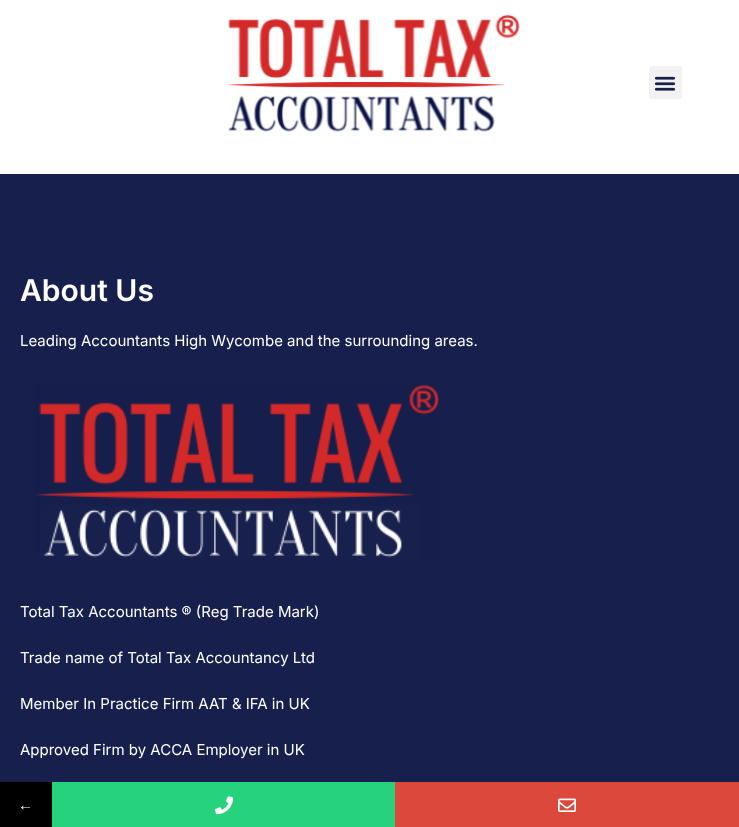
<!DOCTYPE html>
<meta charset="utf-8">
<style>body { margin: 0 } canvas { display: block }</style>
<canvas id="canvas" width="739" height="827"></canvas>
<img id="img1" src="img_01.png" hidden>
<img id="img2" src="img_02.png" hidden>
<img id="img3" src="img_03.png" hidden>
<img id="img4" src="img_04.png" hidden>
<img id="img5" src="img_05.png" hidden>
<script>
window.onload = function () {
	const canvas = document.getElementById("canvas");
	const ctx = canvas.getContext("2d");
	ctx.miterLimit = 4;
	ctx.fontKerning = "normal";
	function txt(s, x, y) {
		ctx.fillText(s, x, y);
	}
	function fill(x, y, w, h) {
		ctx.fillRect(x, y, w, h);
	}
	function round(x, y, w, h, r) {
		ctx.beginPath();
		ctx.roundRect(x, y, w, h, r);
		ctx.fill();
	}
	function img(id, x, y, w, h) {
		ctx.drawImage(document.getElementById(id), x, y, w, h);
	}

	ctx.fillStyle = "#FFFFFF";
	fill(0, 0, 739, 827);
	img("img1", 228, 14, 292, 118);
	ctx.fillStyle = "#F2F2F2";
	round(649, 66, 33, 33, 3);
	img("img2", 654, 76, 22, 15);
	ctx.fillStyle = "#171F4D";
	fill(0, 174, 739, 608);
	img("img3", 35, 384, 404, 174);
	ctx.fillStyle = "#000000";
	fill(0, 782, 52, 45);
	ctx.fillStyle = "#26D37C";
	fill(52, 782, 343, 45);
	img("img4", 215, 796, 18, 19);
	ctx.fillStyle = "#DC483C";
	fill(395, 782, 344, 45);
	img("img5", 558, 798, 18, 14);
	ctx.font = "600 30px Inter";
	ctx.fillStyle = "#FFFFFF";
	txt("About Us", 20, 301);
	ctx.font = "15px Inter";
	txt("Leading Accountants High Wycombe and the surrounding areas.", 20, 346);
	txt("Total Tax Accountants ® (Reg Trade Mark)", 20, 617);
	txt("Trade name of Total Tax Accountancy Ltd", 20, 663);
	txt("Member In Practice Firm AAT & IFA in UK", 20, 709);
	txt("Approved Firm by ACCA Employer in UK", 20, 755);
	ctx.font = "15px Liberation Serif";
	txt("←", 18, 810);
};
</script>
